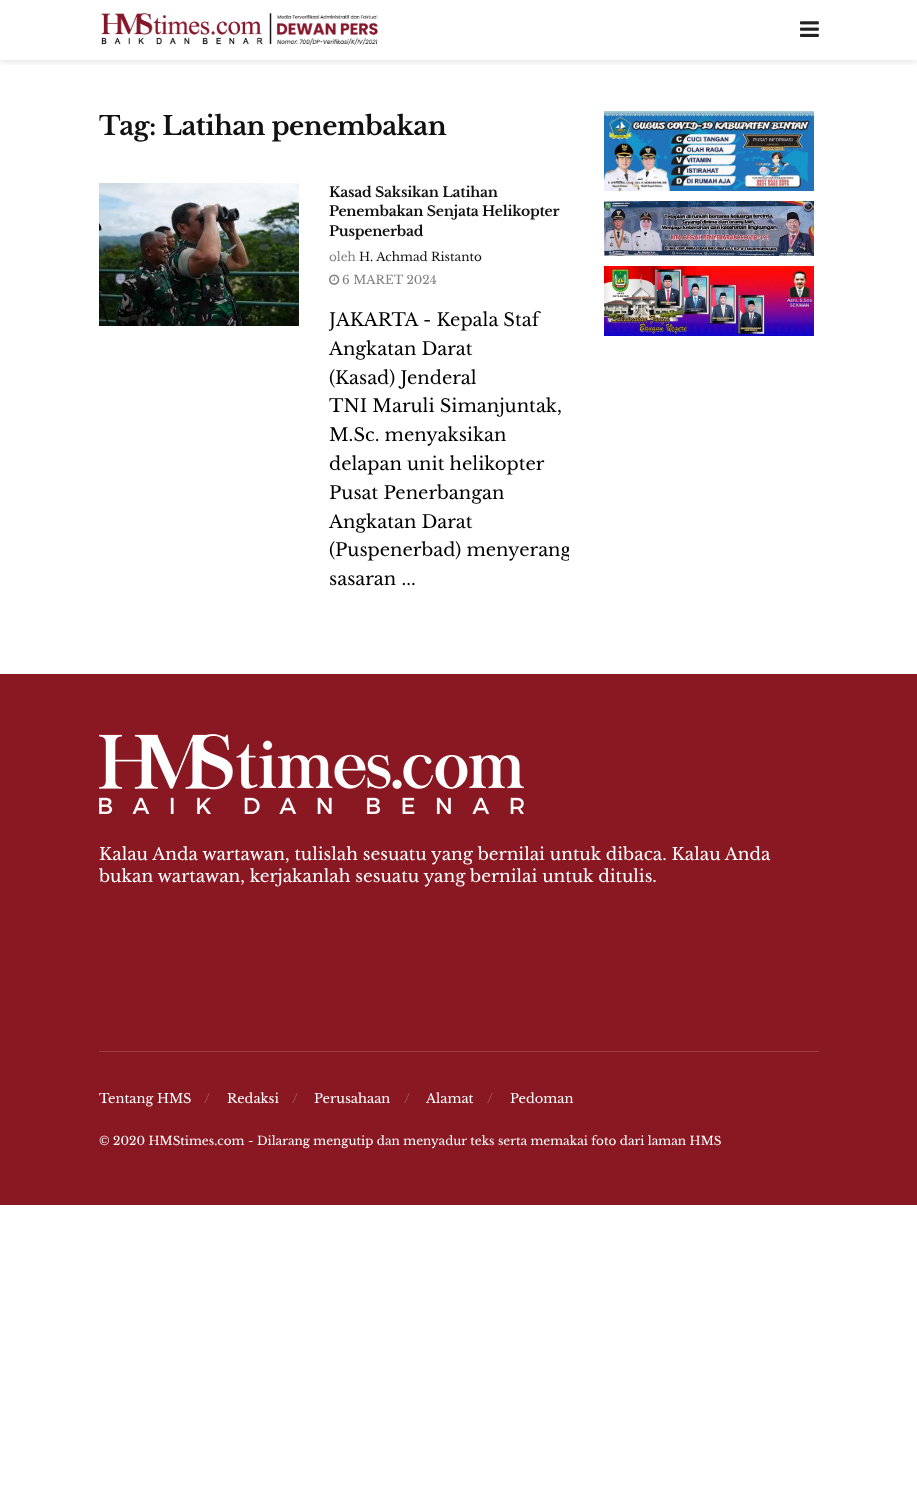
<!DOCTYPE html>
<meta charset="utf-8">
<style>body { margin: 0 } canvas { display: block }</style>
<canvas id="canvas" width="917" height="1496"></canvas>
<img id="img1" src="img_01.png" hidden>
<img id="img2" src="img_02.png" hidden>
<img id="img3" src="img_03.png" hidden>
<img id="img4" src="img_04.png" hidden>
<img id="img5" src="img_05.png" hidden>
<img id="img6" src="img_06.png" hidden>
<img id="img7" src="img_07.png" hidden>
<img id="img8" src="img_08.png" hidden>
<script>
window.onload = function () {
	const canvas = document.getElementById("canvas");
	const ctx = canvas.getContext("2d");
	ctx.miterLimit = 4;
	ctx.fontKerning = "normal";
	function txt(s, x, y) {
		ctx.fillText(s, x, y);
	}
	function fill(x, y, w, h) {
		ctx.fillRect(x, y, w, h);
	}
	function img(id, x, y, w, h) {
		ctx.drawImage(document.getElementById(id), x, y, w, h);
	}

	ctx.fillStyle = "#FFFFFF";
	fill(0, 0, 917, 1496);
	ctx.save();
	ctx.beginPath();
	ctx.rect(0, 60, 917, 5);
	ctx.clip();
	ctx.fillStyle = "rgba(0, 0, 0, 0.1)";
	ctx.filter = "blur(3px)";
	ctx.beginPath();
	ctx.rect(0, 2, 917, 60);
	ctx.fill();
	ctx.filter = "none";
	ctx.restore();
	img("img1", 101, 13, 277, 33);
	img("img2", 800, 21, 19, 16);
	img("img3", 99, 183, 200, 143);
	img("img4", 329, 274, 11, 11);
	img("img5", 604, 111, 210, 80);
	img("img6", 604, 201, 210, 55);
	img("img7", 604, 266, 210, 70);
	ctx.fillStyle = "#8A1823";
	fill(0, 674, 917, 531);
	img("img8", 99, 734, 425, 80);
	ctx.fillStyle = "#9C3B44";
	fill(99, 1051, 720, 1);
	ctx.letterSpacing = "-0.5px";
	ctx.font = "bold 26px Libre Baskerville";
	ctx.fillStyle = "#111111";
	txt("Tag: Latihan penembakan", 99, 135);
	ctx.letterSpacing = "-0.25px";
	ctx.font = "bold 14px Libre Baskerville";
	txt("Kasad Saksikan Latihan", 329, 197);
	txt("Penembakan Senjata Helikopter", 329, 216);
	txt("Puspenerbad", 329, 236);
	ctx.letterSpacing = "0px";
	ctx.font = "12px Libre Baskerville";
	ctx.fillStyle = "#808080";
	txt("oleh", 329, 261);
	ctx.fillStyle = "#111111";
	txt("H. Achmad Ristanto", 359, 261);
	ctx.fillStyle = "#808080";
	txt("6 MARET 2024", 342, 284);
	ctx.save();
	ctx.beginPath();
	ctx.rect(329, 183, 240, 411);
	ctx.clip();
	ctx.font = "18px Libre Baskerville";
	ctx.fillStyle = "#000000";
	txt("JAKARTA - Kepala Staf", 329, 326);
	ctx.restore();
	ctx.font = "18px Libre Baskerville";
	ctx.fillStyle = "#000000";
	txt("Angkatan Darat", 329, 355);
	txt("(Kasad) Jenderal", 329, 384);
	ctx.save();
	ctx.beginPath();
	ctx.rect(329, 183, 240, 411);
	ctx.clip();
	txt("TNI Maruli Simanjuntak,", 329, 412);
	ctx.restore();
	txt("M.Sc. menyaksikan", 329, 441);
	txt("delapan unit helikopter", 329, 470);
	txt("Pusat Penerbangan", 329, 499);
	txt("Angkatan Darat", 329, 528);
	ctx.save();
	ctx.beginPath();
	ctx.rect(329, 183, 240, 411);
	ctx.clip();
	txt("(Puspenerbad) menyerang", 329, 556);
	ctx.restore();
	txt("sasaran ...", 329, 585);
	ctx.font = "17px Libre Baskerville";
	ctx.fillStyle = "#FFFFFF";
	txt("Kalau Anda wartawan, tulislah sesuatu yang bernilai untuk dibaca. Kalau Anda", 99, 860);
	txt("bukan wartawan, kerjakanlah sesuatu yang bernilai untuk ditulis.", 99, 882);
	ctx.font = "13px Libre Baskerville";
	txt("Tentang HMS", 99, 1103);
	ctx.fillStyle = "#AD5D65";
	txt("/", 204, 1103);
	ctx.fillStyle = "#FFFFFF";
	txt("Redaksi", 227, 1103);
	ctx.fillStyle = "#AD5D65";
	txt("/", 292, 1103);
	ctx.fillStyle = "#FFFFFF";
	txt("Perusahaan", 314, 1103);
	ctx.fillStyle = "#AD5D65";
	txt("/", 404, 1103);
	ctx.fillStyle = "#FFFFFF";
	txt("Alamat", 426, 1103);
	ctx.fillStyle = "#AD5D65";
	txt("/", 487, 1103);
	ctx.fillStyle = "#FFFFFF";
	txt("Pedoman", 510, 1103);
	ctx.font = "12px Libre Baskerville";
	txt("© 2020 HMStimes.com - Dilarang mengutip dan menyadur teks serta memakai foto dari laman HMS", 99, 1145);
};
</script>
